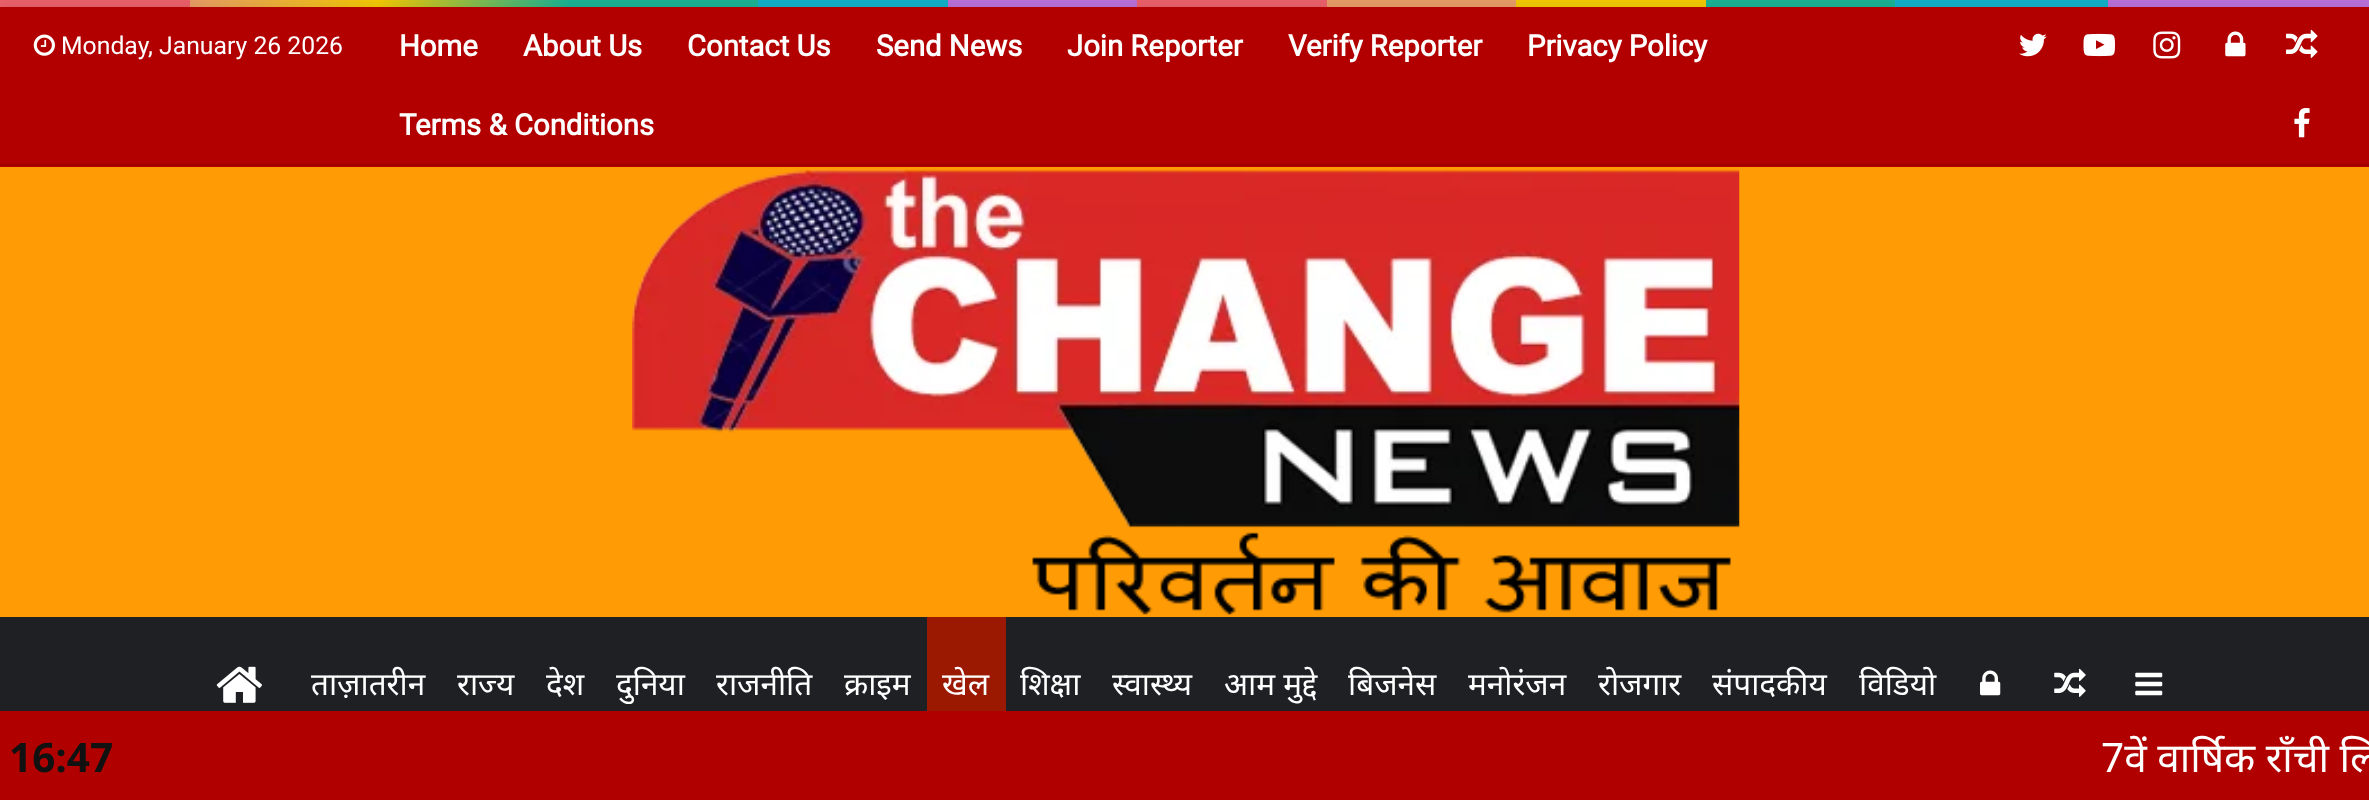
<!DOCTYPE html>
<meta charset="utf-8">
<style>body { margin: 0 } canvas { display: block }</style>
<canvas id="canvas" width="2369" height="800"></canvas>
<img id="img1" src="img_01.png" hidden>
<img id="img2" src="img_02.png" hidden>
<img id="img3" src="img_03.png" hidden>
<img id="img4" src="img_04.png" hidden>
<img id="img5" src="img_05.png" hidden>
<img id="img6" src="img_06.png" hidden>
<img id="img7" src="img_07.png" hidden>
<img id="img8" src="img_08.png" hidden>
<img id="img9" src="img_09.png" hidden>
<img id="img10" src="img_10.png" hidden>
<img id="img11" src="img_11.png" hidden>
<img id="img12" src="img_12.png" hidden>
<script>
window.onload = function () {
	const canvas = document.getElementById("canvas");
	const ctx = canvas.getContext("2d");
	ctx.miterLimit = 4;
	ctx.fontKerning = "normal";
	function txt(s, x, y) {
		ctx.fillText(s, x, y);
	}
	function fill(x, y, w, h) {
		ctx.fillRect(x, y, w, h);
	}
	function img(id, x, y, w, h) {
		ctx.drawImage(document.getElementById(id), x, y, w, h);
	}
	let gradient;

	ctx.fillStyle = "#FFFFFF";
	fill(0, 0, 2369, 800);
	gradient = ctx.createLinearGradient(0, 3.4, 2369, 3.4);
	gradient.addColorStop(0, "#F76570");
	gradient.addColorStop(0.08, "#F76570");
	gradient.addColorStop(0.08, "#F3A46B");
	gradient.addColorStop(0.16, "#FFD205");
	gradient.addColorStop(0.24, "#1BBC9B");
	gradient.addColorStop(0.32, "#1BBC9B");
	gradient.addColorStop(0.32, "#14B9D5");
	gradient.addColorStop(0.4, "#14B9D5");
	gradient.addColorStop(0.4, "#C377E4");
	gradient.addColorStop(0.48, "#C377E4");
	gradient.addColorStop(0.48, "#F76570");
	gradient.addColorStop(0.56, "#F76570");
	gradient.addColorStop(0.56, "#F3A46B");
	gradient.addColorStop(0.64, "#F3A46B");
	gradient.addColorStop(0.64, "#FFD205");
	gradient.addColorStop(0.72, "#FFD205");
	gradient.addColorStop(0.72, "#1BBC9B");
	gradient.addColorStop(0.8, "#1BBC9B");
	gradient.addColorStop(0.8, "#14B9D5");
	gradient.addColorStop(0.89, "#14B9D5");
	gradient.addColorStop(0.89, "#C377E4");
	gradient.addColorStop(1, "#C377E4");
	ctx.fillStyle = gradient;
	fill(0, 0, 2369, 7);
	ctx.fillStyle = "rgba(0, 0, 0, 0.1)";
	ctx.filter = "blur(11px)";
	ctx.beginPath();
	ctx.rect(-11, -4, 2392, 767);
	ctx.fill();
	ctx.filter = "none";
	ctx.fillStyle = "#FF9B05";
	fill(0, 167, 2369, 450);
	ctx.fillStyle = "#B20000";
	fill(0, 7, 2369, 160);
	ctx.fillStyle = "#A00000";
	fill(0, 164, 2369, 2);
	img("img1", 33, 34, 22, 22);
	img("img2", 2019, 33, 28, 24);
	img("img3", 2083, 33, 32, 24);
	img("img4", 2153, 31, 28, 28);
	img("img5", 2225, 31, 21, 26);
	img("img6", 2286, 29, 32, 29);
	img("img7", 2294, 108, 16, 30);
	img("img8", 632, 169, 1108, 446);
	ctx.fillStyle = "#1F2024";
	fill(0, 617, 2369, 94);
	img("img9", 216, 666, 46, 37);
	ctx.fillStyle = "#9B1900";
	fill(927, 617, 79, 94);
	img("img10", 1980, 670, 21, 26);
	img("img11", 2054, 668, 32, 29);
	img("img12", 2135, 672, 28, 24);
	ctx.fillStyle = "#B10000";
	fill(0, 711, 2369, 89);
	ctx.font = "24.75px Roboto";
	ctx.fillStyle = "#FFFFFF";
	txt("Monday, January 26 2026", 61, 54);
	ctx.font = "bold 29.25px Roboto";
	txt("Home", 399, 56);
	txt("About Us", 523, 56);
	txt("Contact Us", 687, 56);
	txt("Send News", 876, 56);
	txt("Join Reporter", 1067, 56);
	txt("Verify Reporter", 1288, 56);
	txt("Privacy Policy", 1527, 56);
	txt("Terms & Conditions", 399, 135);
	ctx.font = "31.5px Noto Sans";
	txt("ताज़ातरीन", 311, 695);
	txt("राज्य", 457, 695);
	txt("देश", 546, 695);
	txt("दुनिया", 616, 695);
	txt("राजनीति", 716, 695);
	txt("क्राइम", 844, 695);
	txt("खेल", 942, 695);
	txt("शिक्षा", 1020, 695);
	txt("स्वास्थ्य", 1112, 695);
	txt("आम मुद्दे", 1224, 695);
	txt("बिजनेस", 1348, 695);
	txt("मनोरंजन", 1468, 695);
	txt("रोजगार", 1598, 695);
	txt("संपादकीय", 1712, 695);
	txt("विडियो", 1859, 695);
	ctx.font = "bold 40.5px Open Sans";
	ctx.fillStyle = "#111111";
	txt("16:47", 9, 772);
	ctx.font = "40.5px Noto Sans";
	ctx.fillStyle = "#FFFFFF";
	txt("7वें वार्षिक राँची लि", 2101, 772);
};
</script>
